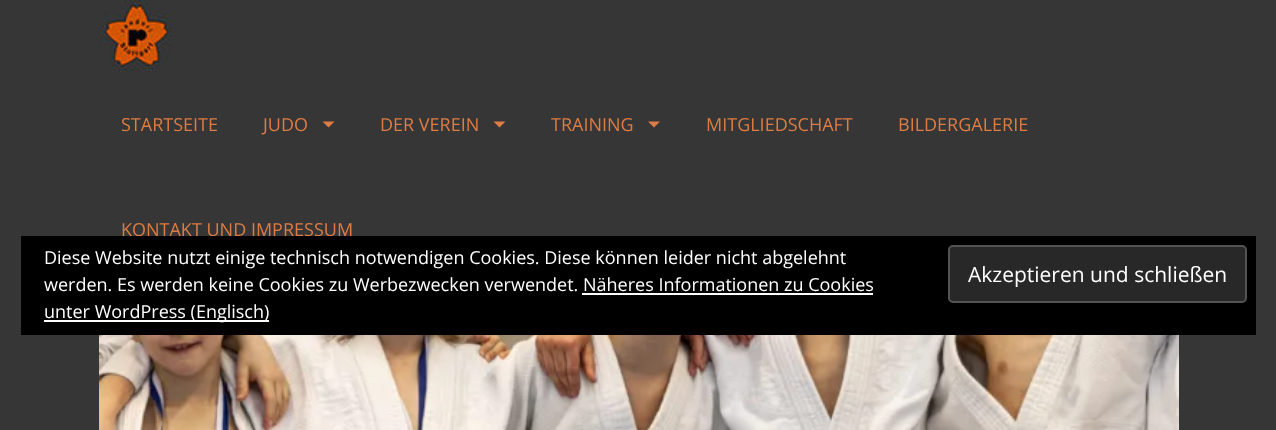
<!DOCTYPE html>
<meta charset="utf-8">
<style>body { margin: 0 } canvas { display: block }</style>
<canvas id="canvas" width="1276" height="430"></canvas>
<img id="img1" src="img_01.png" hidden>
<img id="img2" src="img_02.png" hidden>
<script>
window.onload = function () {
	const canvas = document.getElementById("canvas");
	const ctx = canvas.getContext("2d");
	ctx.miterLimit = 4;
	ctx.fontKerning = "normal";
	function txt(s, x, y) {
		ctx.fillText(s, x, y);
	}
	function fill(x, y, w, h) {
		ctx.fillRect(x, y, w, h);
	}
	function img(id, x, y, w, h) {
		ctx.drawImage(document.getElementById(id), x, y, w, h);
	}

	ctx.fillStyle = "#363636";
	fill(0, 0, 1276, 430);
	img("img1", 99, 0, 73, 72);
	ctx.fillStyle = "#DD7C44";
	ctx.beginPath();
	ctx.moveTo(322.5, 121.5);
	ctx.lineTo(334.5, 121.5);
	ctx.lineTo(328.5, 127.5);
	ctx.closePath();
	ctx.fill();
	ctx.beginPath();
	ctx.moveTo(493.5, 121.5);
	ctx.lineTo(505.5, 121.5);
	ctx.lineTo(499.5, 127.5);
	ctx.closePath();
	ctx.fill();
	ctx.beginPath();
	ctx.moveTo(648, 121.5);
	ctx.lineTo(660, 121.5);
	ctx.lineTo(654, 127.5);
	ctx.closePath();
	ctx.fill();
	img("img2", 99, 335, 1080, 95);
	ctx.font = "18px Open Sans";
	txt("STARTSEITE", 121, 131);
	txt("JUDO", 263, 131);
	txt("DER VEREIN", 380, 131);
	txt("TRAINING", 551, 131);
	txt("MITGLIEDSCHAFT", 706, 131);
	txt("BILDERGALERIE", 898, 131);
	txt("KONTAKT UND IMPRESSUM", 121, 236);
	ctx.fillStyle = "#000000";
	fill(21, 236, 1235, 99);
	ctx.fillStyle = "#FFFFFF";
	txt("Diese Website nutzt einige technisch notwendigen Cookies. Diese können leider nicht abgelehnt", 44, 264);
	txt("werden. Es werden keine Cookies zu Werbezwecken verwendet. Näheres Informationen zu Cookies", 44, 291);
	ctx.fillStyle = "#282828";
	ctx.beginPath();
	ctx.roundRect(949, 246, 297, 56, 4);
	ctx.fill();
	ctx.strokeStyle = "#535353";
	ctx.lineWidth = 2;
	ctx.stroke();
	ctx.font = "21px Open Sans";
	ctx.fillStyle = "#FFFFFF";
	txt("Akzeptieren und schließen", 968, 282);
	fill(582, 293, 291, 2);
	fill(44, 320, 225, 2);
	ctx.font = "18px Open Sans";
	txt("unter WordPress (Englisch)", 44, 318);
};
</script>
